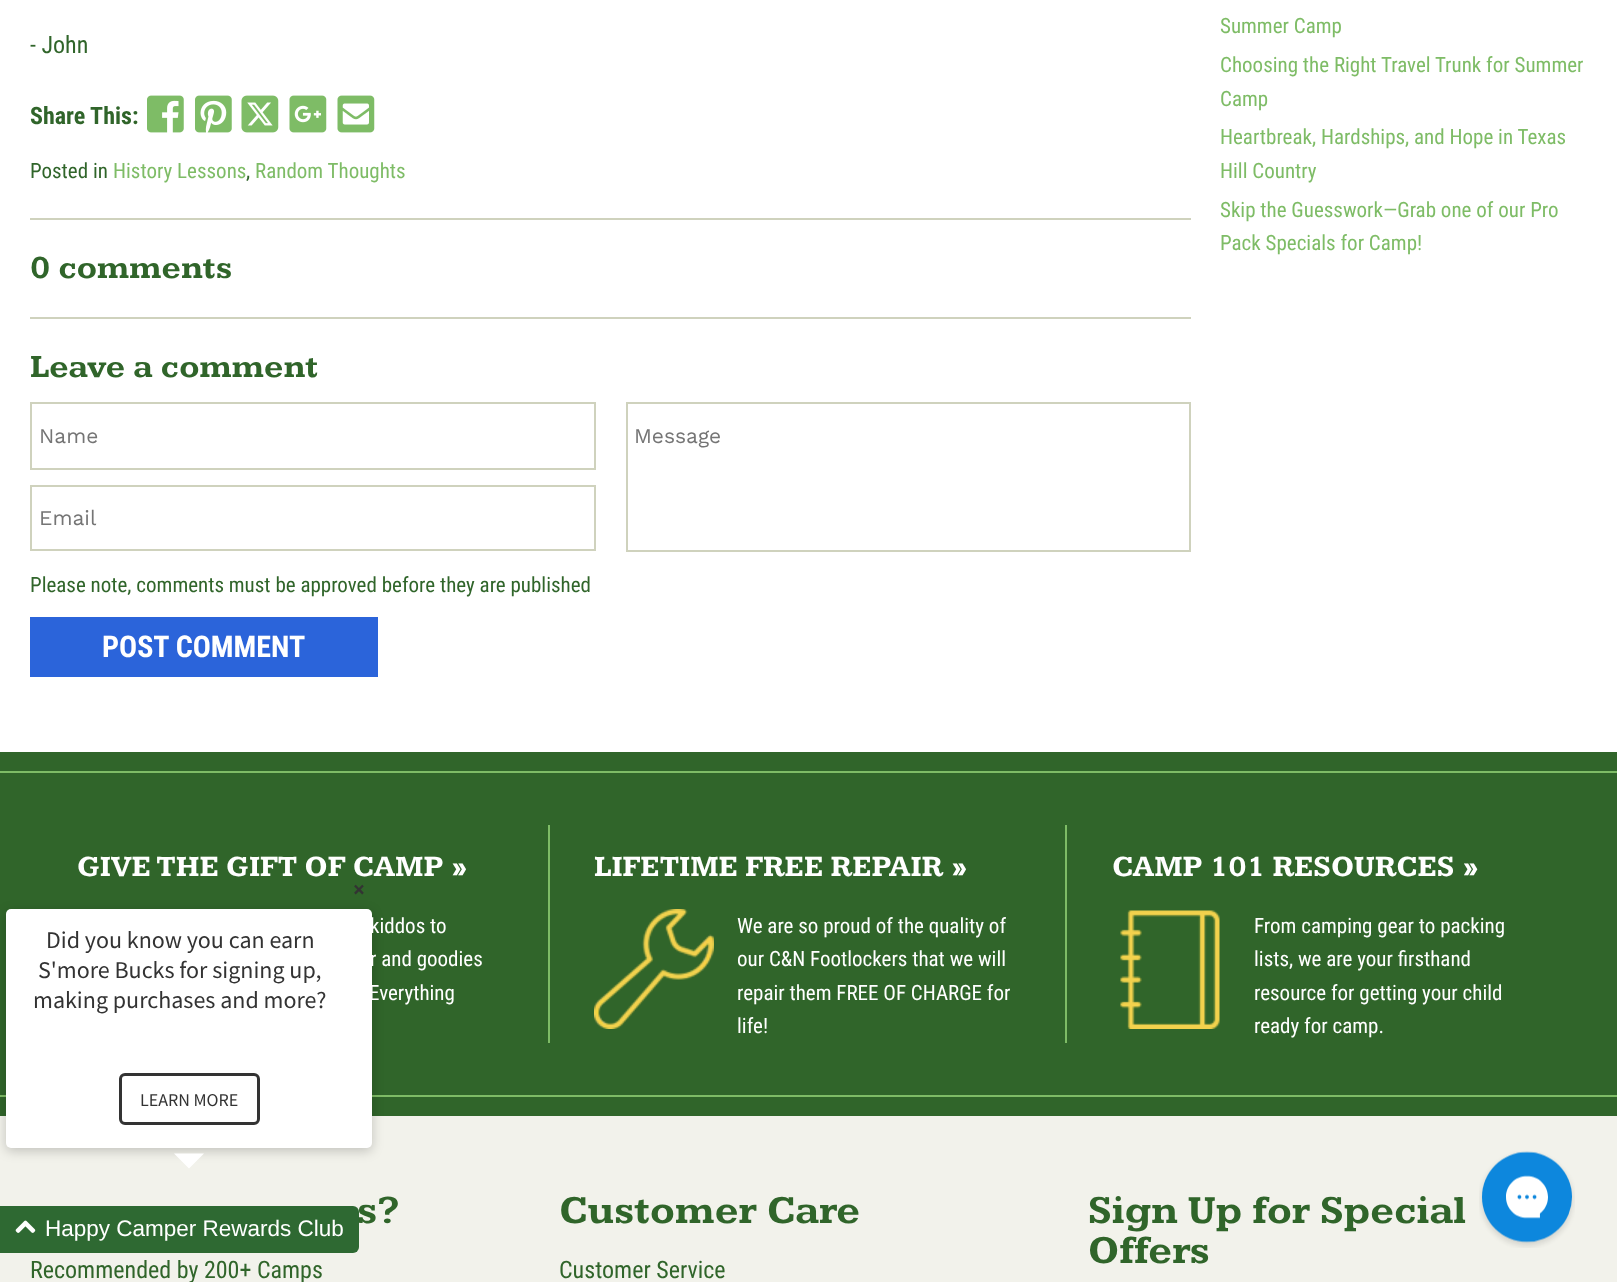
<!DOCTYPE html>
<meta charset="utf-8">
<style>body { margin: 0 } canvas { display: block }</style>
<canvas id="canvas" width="1617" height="1282"></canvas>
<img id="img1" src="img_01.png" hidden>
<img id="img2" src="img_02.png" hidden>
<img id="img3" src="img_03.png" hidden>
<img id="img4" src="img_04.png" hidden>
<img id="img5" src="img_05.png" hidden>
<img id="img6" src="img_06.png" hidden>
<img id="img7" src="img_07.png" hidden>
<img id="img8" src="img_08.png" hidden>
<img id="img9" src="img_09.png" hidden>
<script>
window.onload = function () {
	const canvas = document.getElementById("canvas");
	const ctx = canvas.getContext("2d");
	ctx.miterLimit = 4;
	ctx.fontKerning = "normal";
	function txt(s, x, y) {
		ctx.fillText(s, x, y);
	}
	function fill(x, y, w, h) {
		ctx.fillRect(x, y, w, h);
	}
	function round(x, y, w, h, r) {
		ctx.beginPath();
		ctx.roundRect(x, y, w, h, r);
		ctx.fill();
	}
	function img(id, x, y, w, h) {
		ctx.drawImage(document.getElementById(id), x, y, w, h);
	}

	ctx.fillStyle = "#FFFFFF";
	fill(0, 0, 1617, 1282);
	img("img1", 147, 95, 37, 38);
	img("img2", 195, 95, 37, 38);
	img("img3", 241, 95, 38, 38);
	img("img4", 289, 95, 38, 38);
	img("img5", 337, 95, 38, 38);
	ctx.fillStyle = "#CFD2BD";
	fill(30, 218, 1161, 2);
	fill(30, 317, 1161, 2);
	ctx.strokeStyle = "#CFD2BD";
	ctx.lineWidth = 2;
	ctx.strokeRect(31, 403, 564, 66);
	ctx.strokeRect(31, 486, 564, 64);
	ctx.strokeRect(627, 403, 563, 148);
	ctx.fillStyle = "#2B64DA";
	fill(30, 617, 348, 60);
	ctx.fillStyle = "#F2F2EB";
	fill(0, 1116, 1617, 166);
	ctx.fillStyle = "#30652A";
	fill(0, 752, 1617, 364);
	ctx.fillStyle = "#7EBC66";
	fill(0, 771, 1617, 2);
	fill(0, 1095, 1617, 2);
	fill(548, 825, 2, 218);
	fill(1065, 825, 2, 218);
	img("img6", 594, 909, 120, 120);
	img("img7", 1120, 910, 100, 119);
	ctx.fillStyle = "rgba(0, 0, 0, 0.2)";
	ctx.filter = "blur(6px)";
	ctx.beginPath();
	ctx.roundRect(6, 912, 366, 239, 5);
	ctx.fill();
	ctx.filter = "none";
	ctx.fillStyle = "#FFFFFF";
	round(6, 909, 366, 239, 5);
	ctx.beginPath();
	ctx.roundRect(120.5, 1074.5, 138, 49, 4.5);
	ctx.strokeStyle = "#333333";
	ctx.lineWidth = 3;
	ctx.stroke();
	ctx.beginPath();
	ctx.moveTo(174, 1153.5);
	ctx.lineTo(204, 1153.5);
	ctx.lineTo(189, 1168.5);
	ctx.closePath();
	ctx.fill();
	ctx.fillStyle = "#2E6932";
	ctx.beginPath();
	ctx.roundRect(0, 1206, 359, 47, [0, 6, 6, 0]);
	ctx.fill();
	img("img8", 15, 1220, 21, 13);
	img("img9", 1479, 1151, 96, 97);
	ctx.font = "24px Roboto Condensed";
	ctx.fillStyle = "#30652A";
	txt("- John", 30, 53);
	ctx.font = "bold 24px Roboto Condensed";
	txt("Share This:", 30, 124);
	ctx.font = "21px Roboto Condensed";
	txt("Posted in", 30, 178);
	ctx.fillStyle = "#7EBC66";
	txt("History Lessons", 113, 178);
	ctx.fillStyle = "#30652A";
	txt(",", 246, 178);
	ctx.fillStyle = "#7EBC66";
	txt("Random Thoughts", 255, 178);
	ctx.font = "bold 33px Kameron";
	ctx.fillStyle = "#30652A";
	txt("0 comments", 30, 278);
	txt("Leave a comment", 30, 377);
	ctx.font = "21px Work Sans";
	ctx.fillStyle = "#757575";
	txt("Name", 39, 443);
	txt("Email", 39, 525);
	txt("Message", 634, 443);
	ctx.font = "21px Roboto Condensed";
	ctx.fillStyle = "#30652A";
	txt("Please note, comments must be approved before they are published", 30, 592);
	ctx.font = "bold 30px Roboto Condensed";
	ctx.fillStyle = "#FFFFFF";
	txt("POST COMMENT", 102, 657);
	ctx.font = "21px Roboto Condensed";
	ctx.fillStyle = "#7EBC66";
	txt("Summer Camp", 1220, 33);
	txt("Choosing the Right Travel Trunk for Summer", 1220, 72);
	txt("Camp", 1220, 106);
	txt("Heartbreak, Hardships, and Hope in Texas", 1220, 144);
	txt("Hill Country", 1220, 178);
	txt("Skip the Guesswork—Grab one of our Pro", 1220, 217);
	txt("Pack Specials for Camp!", 1220, 250);
	ctx.font = "bold 30px Kameron";
	ctx.fillStyle = "#FFFFFF";
	txt("GIVE THE GIFT OF CAMP »", 77, 876);
	ctx.font = "21px Roboto Condensed";
	txt("kiddos to", 370, 933);
	txt("r and goodies", 370, 966);
	txt("Everything", 369, 1000);
	ctx.font = "bold 30px Kameron";
	txt("LIFETIME FREE REPAIR »", 594, 876);
	ctx.font = "21px Roboto Condensed";
	txt("We are so proud of the quality of", 737, 933);
	txt("our C&N Footlockers that we will", 737, 966);
	txt("repair them FREE OF CHARGE for", 737, 1000);
	txt("life!", 737, 1033);
	ctx.font = "bold 30px Kameron";
	txt("CAMP 101 RESOURCES »", 1112, 876);
	ctx.font = "21px Roboto Condensed";
	txt("From camping gear to packing", 1254, 933);
	txt("lists, we are your firsthand", 1254, 966);
	txt("resource for getting your child", 1254, 1000);
	txt("ready for camp.", 1254, 1033);
	ctx.font = "bold 40.5px Kameron";
	ctx.fillStyle = "#30652A";
	txt("s?", 357, 1223);
	ctx.font = "24px Roboto Condensed";
	txt("Recommended by 200+ Camps", 30, 1278);
	ctx.font = "bold 40.5px Kameron";
	txt("Customer Care", 559, 1223);
	ctx.font = "24px Roboto Condensed";
	txt("Customer Service", 559, 1278);
	ctx.font = "bold 40.5px Kameron";
	txt("Sign Up for Special", 1088, 1223);
	txt("Offers", 1088, 1263);
	ctx.font = "bold 22.5px Source Sans Pro";
	ctx.fillStyle = "#333333";
	txt("×", 353, 897);
	ctx.font = "24px Source Sans Pro";
	txt("Did you know you can earn", 46, 948);
	txt("S'more Bucks for signing up,", 38, 978);
	txt("making purchases and more?", 33, 1008);
	ctx.font = "18px Source Sans Pro";
	txt("LEARN MORE", 140, 1106);
	ctx.font = "22.5px Liberation Sans";
	ctx.fillStyle = "#FFFFFF";
	txt("Happy Camper Rewards Club", 45, 1236);
};
</script>
